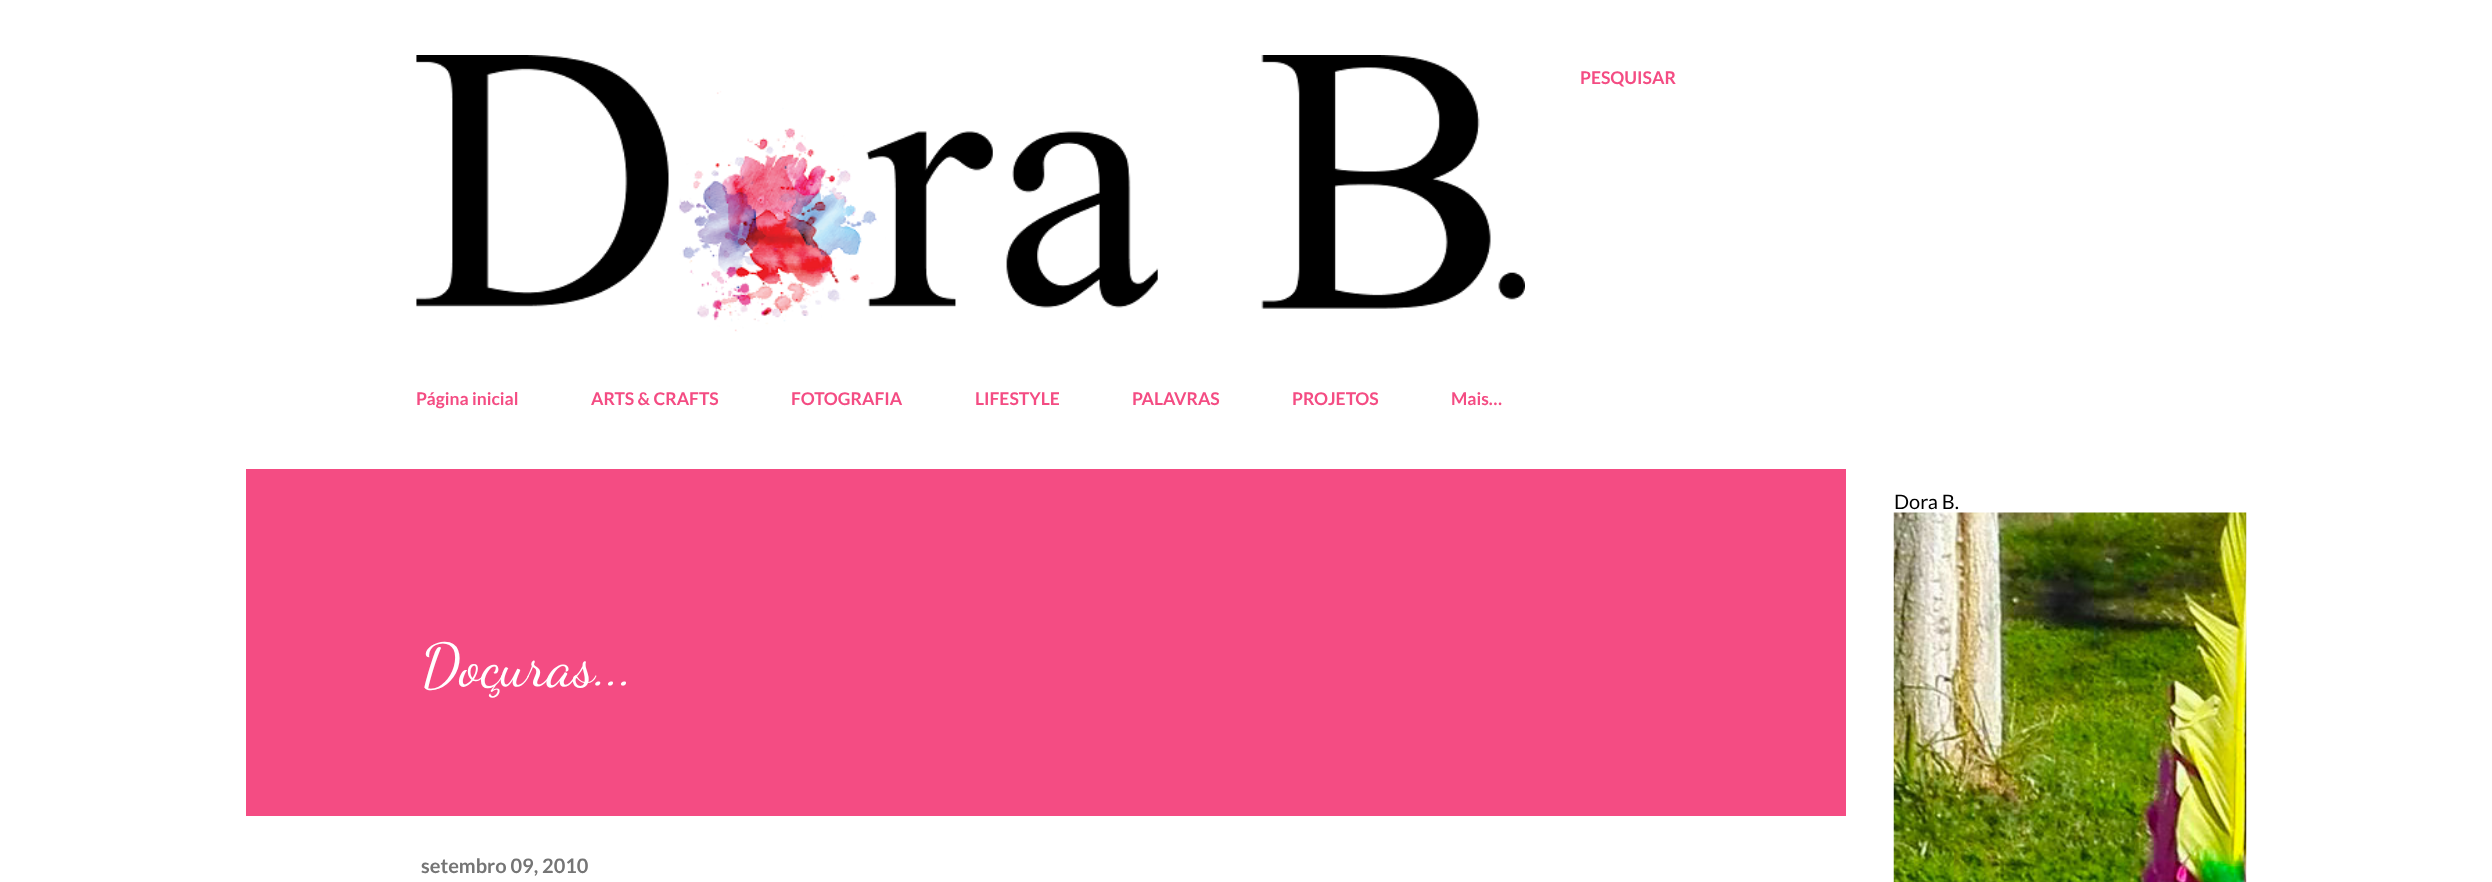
<!DOCTYPE html>
<meta charset="utf-8">
<style>body { margin: 0 } canvas { display: block }</style>
<canvas id="canvas" width="2492" height="882"></canvas>
<img id="img1" src="img_01.png" hidden>
<img id="img2" src="img_02.png" hidden>
<script>
window.onload = function () {
	const canvas = document.getElementById("canvas");
	const ctx = canvas.getContext("2d");
	ctx.miterLimit = 4;
	ctx.fontKerning = "normal";
	function txt(s, x, y) {
		ctx.fillText(s, x, y);
	}
	function fill(x, y, w, h) {
		ctx.fillRect(x, y, w, h);
	}
	function img(id, x, y, w, h) {
		ctx.drawImage(document.getElementById(id), x, y, w, h);
	}

	ctx.fillStyle = "#FFFFFF";
	fill(0, 0, 2492, 882);
	img("img1", 416, 55, 1109, 277);
	img("img2", 1893, 512, 354, 370);
	ctx.fillStyle = "#F44C83";
	fill(246, 469, 1600, 347);
	ctx.font = "bold 17.5px Lato";
	txt("PESQUISAR", 1580, 84);
	txt("Página inicial", 416, 405);
	txt("ARTS & CRAFTS", 591, 405);
	txt("FOTOGRAFIA", 791, 405);
	txt("LIFESTYLE", 975, 405);
	txt("PALAVRAS", 1132, 405);
	txt("PROJETOS", 1292, 405);
	txt("Mais…", 1451, 405);
	ctx.font = "20px Lato";
	ctx.fillStyle = "#000000";
	txt("Dora B.", 1894, 509);
	ctx.font = "60px Dancing Script";
	ctx.fillStyle = "#FFFFFF";
	txt("Doçuras...", 421, 685);
	ctx.font = "bold 20px Lato";
	ctx.fillStyle = "#757575";
	txt("setembro 09, 2010", 421, 873);
};
</script>
